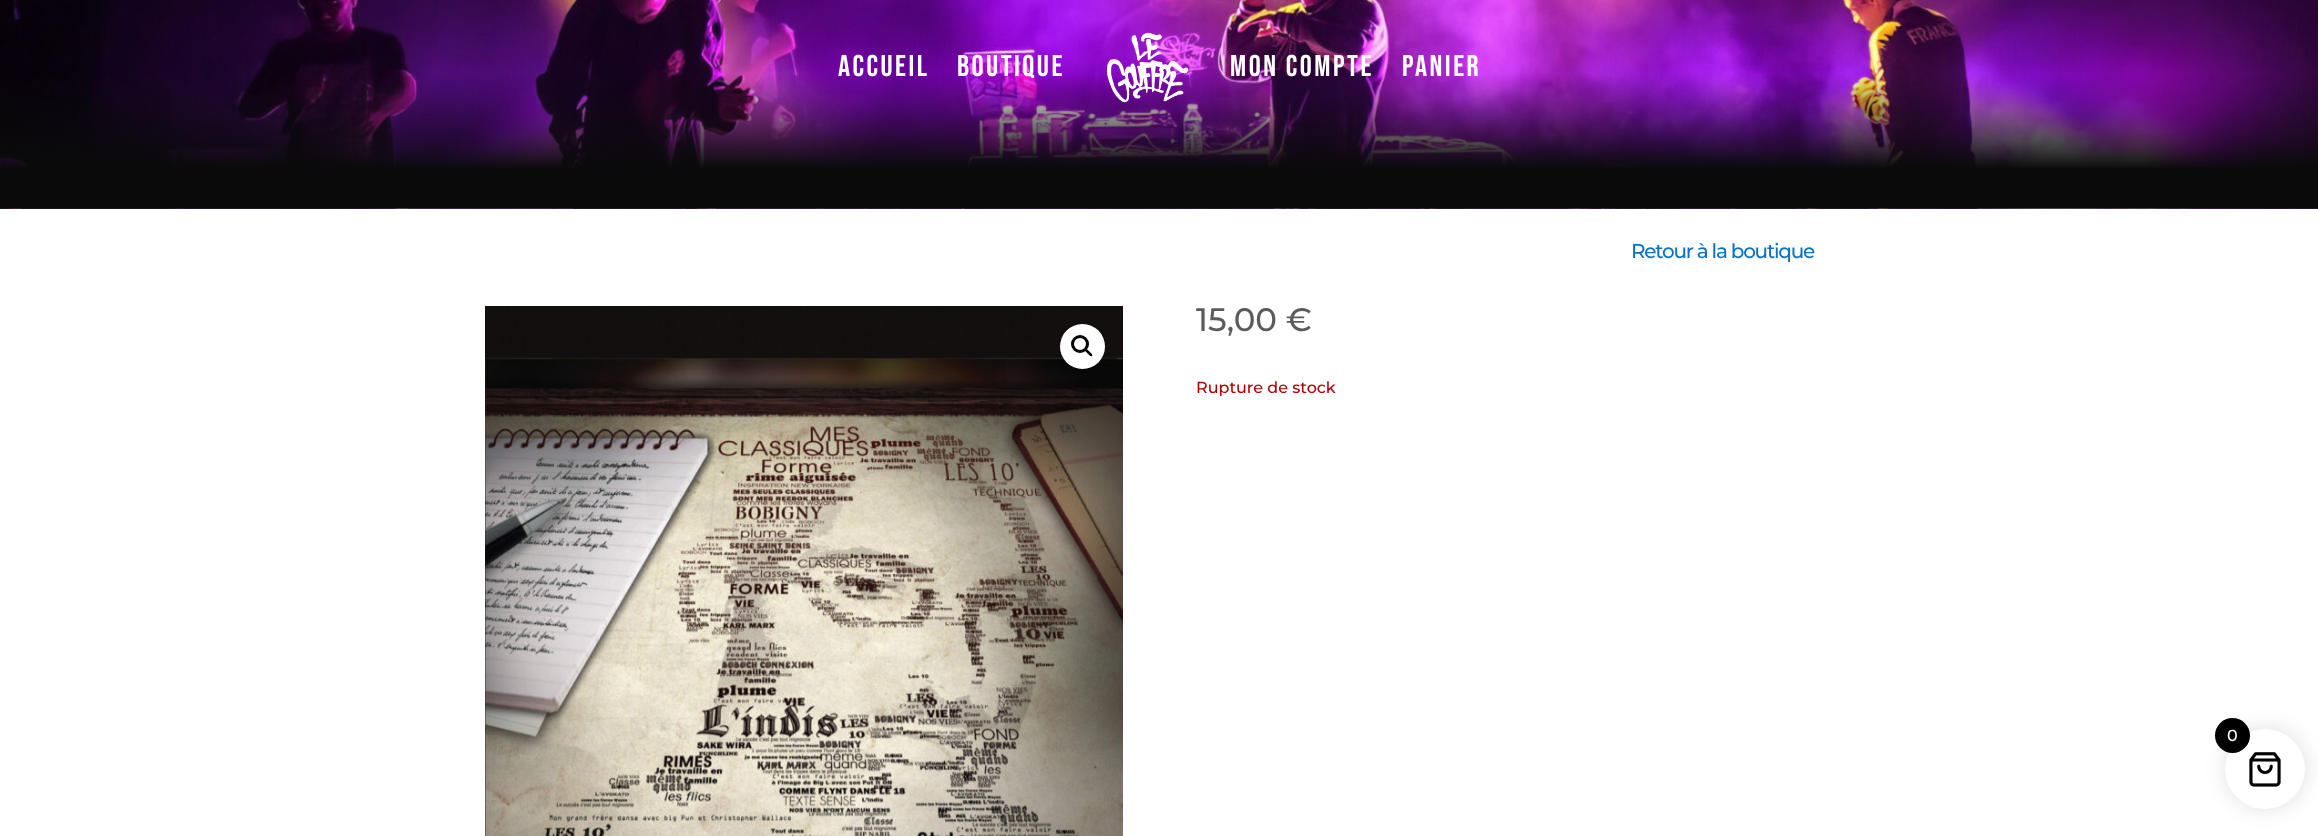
<!DOCTYPE html>
<meta charset="utf-8">
<style>body { margin: 0 } canvas { display: block }</style>
<canvas id="canvas" width="2318" height="836"></canvas>
<img id="img1" src="img_01.png" hidden>
<img id="img2" src="img_02.png" hidden>
<img id="img3" src="img_03.png" hidden>
<img id="img4" src="img_04.png" hidden>
<script>
window.onload = function () {
	const canvas = document.getElementById("canvas");
	const ctx = canvas.getContext("2d");
	ctx.miterLimit = 4;
	ctx.fontKerning = "normal";
	function txt(s, x, y) {
		ctx.fillText(s, x, y);
	}
	function fill(x, y, w, h) {
		ctx.fillRect(x, y, w, h);
	}
	function img(id, x, y, w, h) {
		ctx.drawImage(document.getElementById(id), x, y, w, h);
	}

	ctx.fillStyle = "#FFFFFF";
	fill(0, 0, 2318, 836);
	img("img1", 0, 0, 2318, 209);
	img("img2", 1107, 32, 81, 71);
	img("img3", 485, 306, 638, 530);
	ctx.beginPath();
	ctx.arc(1082.5, 346.5, 22.5, 0, Math.PI * 2);
	ctx.fill();
	ctx.beginPath();
	ctx.arc(1080, 344, 7.5, 0, Math.PI * 2);
	ctx.strokeStyle = "#000000";
	ctx.lineWidth = 3;
	ctx.stroke();
	ctx.fillStyle = "#000000";
	ctx.beginPath();
	ctx.moveTo(1085, 349);
	ctx.bezierCurveTo(1086.5, 347.5, 1088.5, 351, 1089.5, 351.5);
	ctx.bezierCurveTo(1090, 352.5, 1093.5, 354.5, 1092, 356);
	ctx.bezierCurveTo(1090.5, 357.5, 1088.5, 354, 1087.5, 353.5);
	ctx.bezierCurveTo(1087, 352.5, 1083.5, 350.5, 1085, 349);
	ctx.closePath();
	ctx.fill();
	ctx.fillStyle = "rgba(0, 0, 0, 0.1)";
	ctx.filter = "blur(9.5px)";
	ctx.beginPath();
	ctx.roundRect(2223, 726, 85, 85, 42.5);
	ctx.fill();
	ctx.filter = "none";
	ctx.fillStyle = "#FFFFFF";
	ctx.beginPath();
	ctx.arc(2265, 769, 40, 0, Math.PI * 2);
	ctx.fill();
	img("img4", 2249, 752, 32, 35);
	ctx.fillStyle = "#000000";
	ctx.beginPath();
	ctx.arc(2232.5, 735.5, 17.5, 0, Math.PI * 2);
	ctx.fill();
	ctx.letterSpacing = "2.5px";
	ctx.font = "30px Bebas Neue";
	ctx.fillStyle = "#FFFFFF";
	txt("Accueil", 838, 76);
	txt("Boutique", 957, 76);
	txt("Mon compte", 1230, 76);
	txt("Panier", 1402, 76);
	ctx.letterSpacing = "-1.25px";
	ctx.font = "500 20px Montserrat";
	ctx.fillStyle = "#0C71C3";
	txt("Retour à la boutique", 1631, 258);
	ctx.letterSpacing = "0px";
	ctx.font = "500 32.5px Montserrat";
	ctx.fillStyle = "#5B5B5B";
	txt("15,00 €", 1196, 331);
	ctx.font = "500 16px Montserrat";
	ctx.fillStyle = "#AA0000";
	txt("Rupture de stock", 1196, 393);
	ctx.fillStyle = "#FFFFFF";
	txt("0", 2227, 741);
};
</script>
